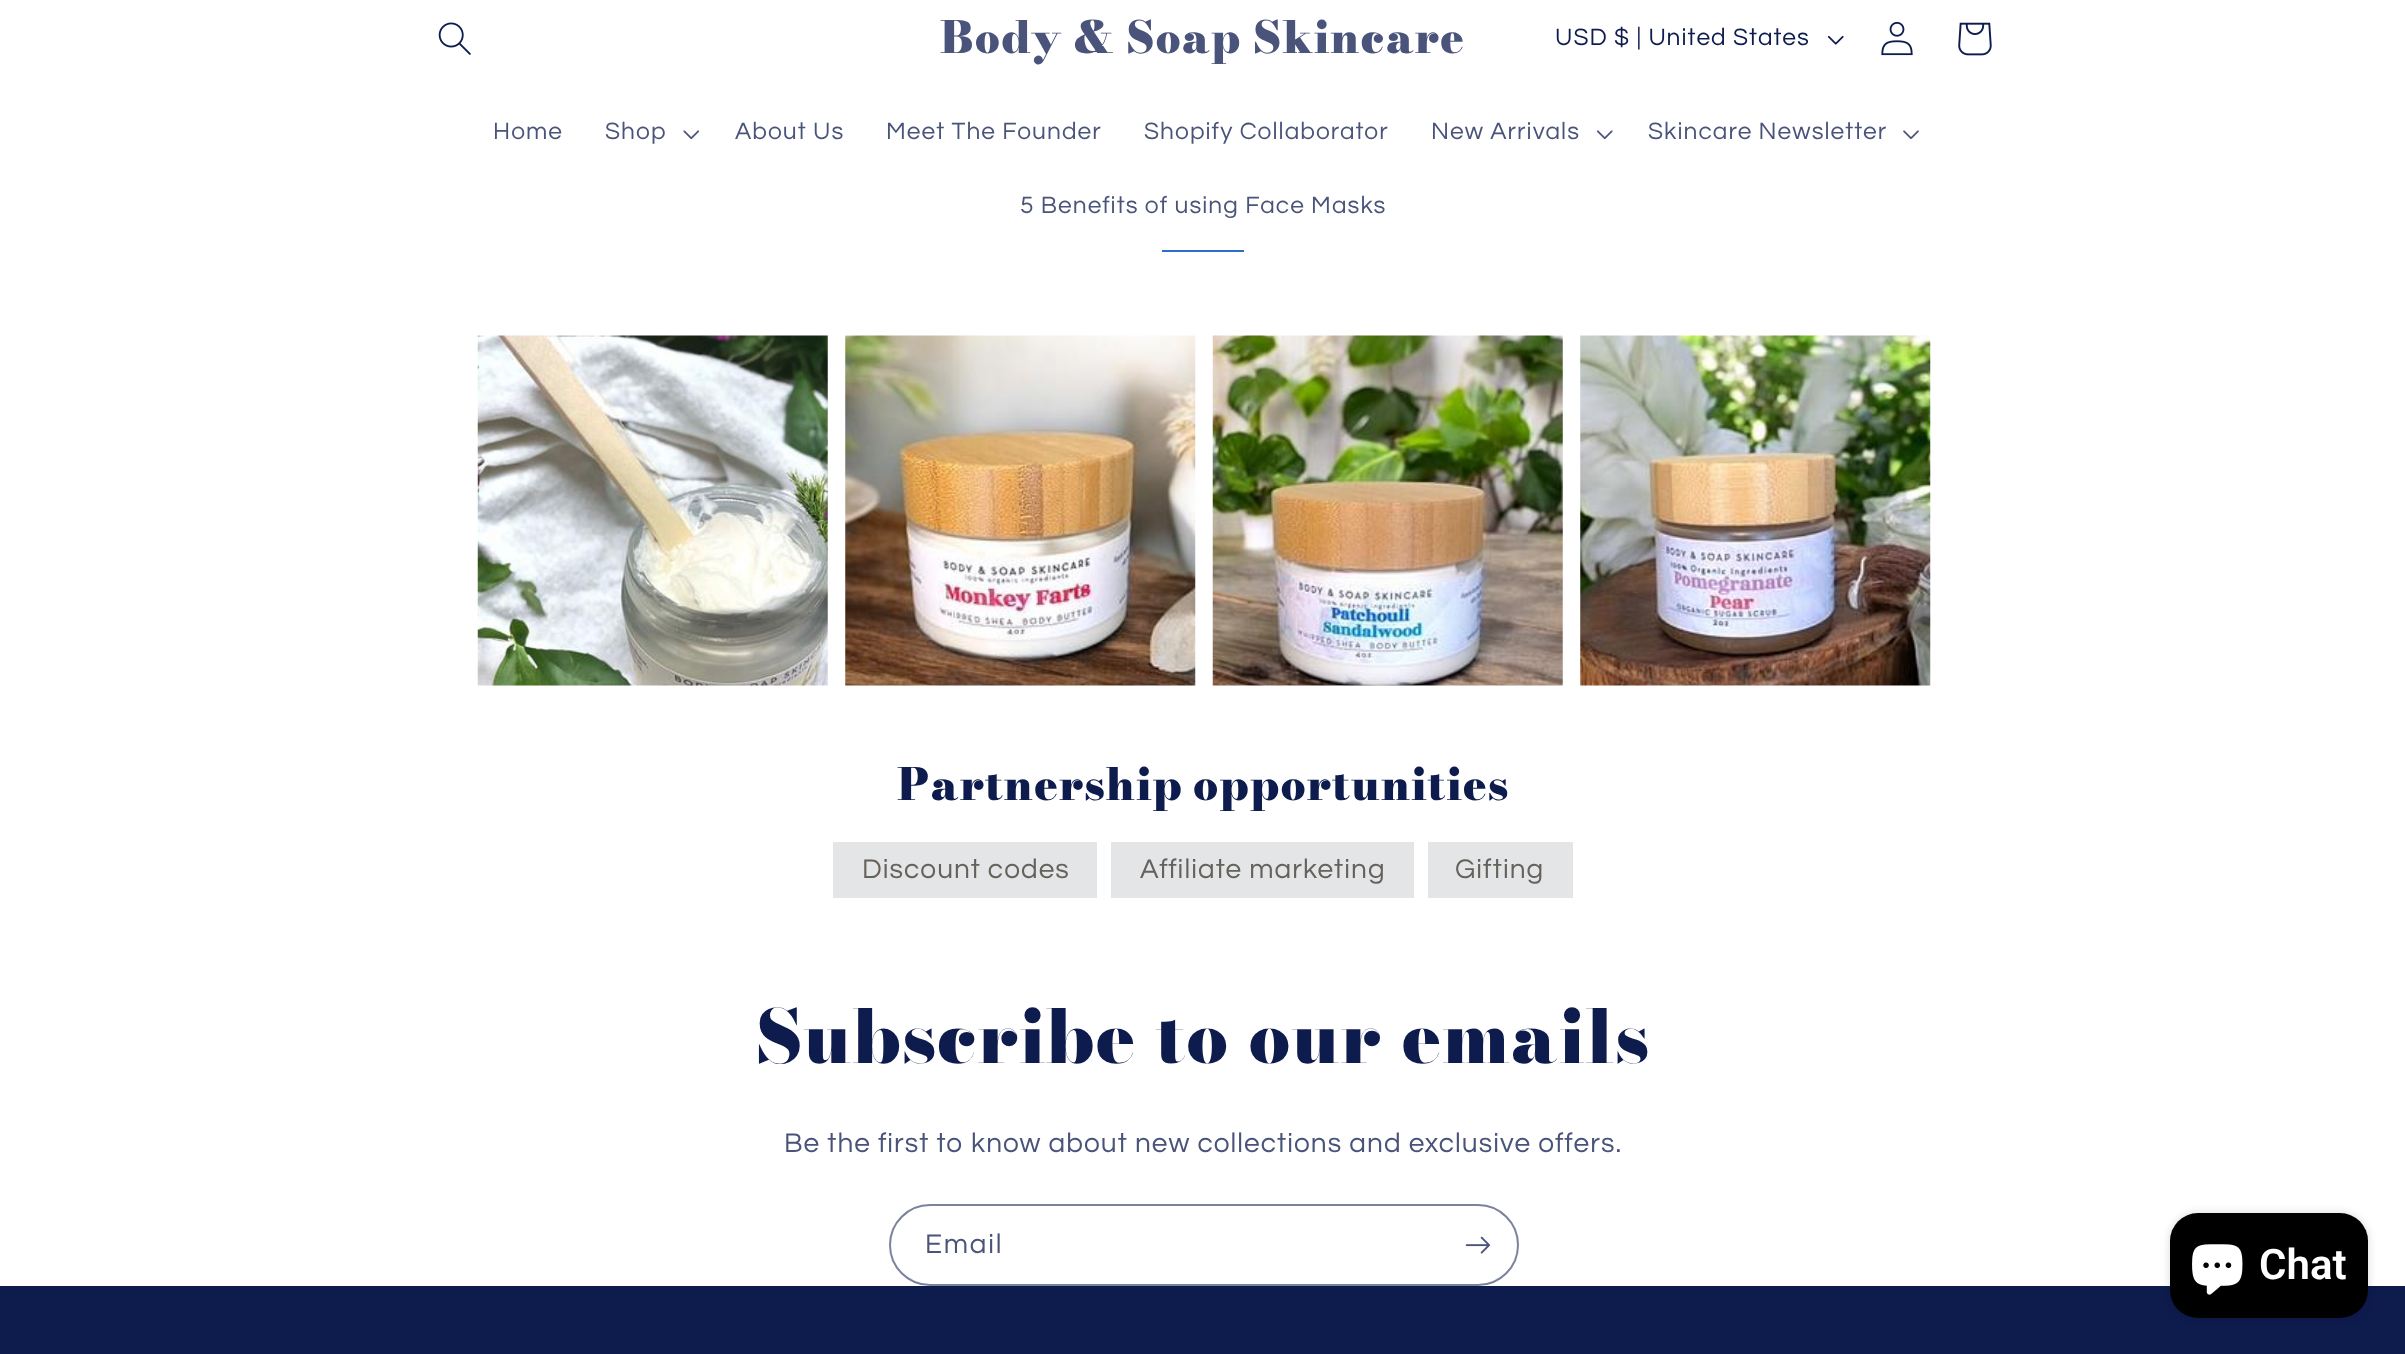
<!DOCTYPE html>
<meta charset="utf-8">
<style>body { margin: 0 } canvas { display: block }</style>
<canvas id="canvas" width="2405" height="1354"></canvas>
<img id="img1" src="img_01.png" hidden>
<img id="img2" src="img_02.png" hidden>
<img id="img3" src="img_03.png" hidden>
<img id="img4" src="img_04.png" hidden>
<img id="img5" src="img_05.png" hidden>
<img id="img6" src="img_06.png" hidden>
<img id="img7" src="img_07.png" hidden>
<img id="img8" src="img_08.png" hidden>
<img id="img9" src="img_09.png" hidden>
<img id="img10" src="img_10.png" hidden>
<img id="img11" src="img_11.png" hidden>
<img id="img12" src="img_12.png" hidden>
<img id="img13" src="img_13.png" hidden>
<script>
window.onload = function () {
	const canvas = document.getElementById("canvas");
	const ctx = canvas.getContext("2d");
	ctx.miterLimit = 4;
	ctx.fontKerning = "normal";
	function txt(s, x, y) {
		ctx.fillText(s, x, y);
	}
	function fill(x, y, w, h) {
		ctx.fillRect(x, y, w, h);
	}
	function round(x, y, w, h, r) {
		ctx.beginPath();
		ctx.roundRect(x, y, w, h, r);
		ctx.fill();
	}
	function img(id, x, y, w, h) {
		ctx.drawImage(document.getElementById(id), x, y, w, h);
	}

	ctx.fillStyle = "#FFFFFF";
	fill(0, 0, 2405, 1354);
	img("img1", 438, 22, 33, 33);
	img("img2", 1827, 35, 17, 10);
	img("img3", 1881, 21, 32, 35);
	img("img4", 1958, 22, 34, 34);
	img("img5", 683, 130, 17, 10);
	img("img6", 1596, 130, 17, 10);
	img("img7", 1903, 130, 16, 9);
	ctx.fillStyle = "#2C6ECB";
	fill(1162, 250, 82, 2);
	img("img8", 477, 335, 351, 351);
	img("img9", 845, 335, 351, 351);
	img("img10", 1212, 335, 351, 351);
	img("img11", 1580, 335, 351, 351);
	ctx.fillStyle = "#E4E5E7";
	fill(833, 842, 264, 56);
	fill(1111, 842, 303, 56);
	fill(1428, 842, 145, 56);
	ctx.beginPath();
	ctx.roundRect(890, 1205, 628, 80, 40);
	ctx.strokeStyle = "#7A829D";
	ctx.lineWidth = 2;
	ctx.stroke();
	img("img12", 1465, 1236, 25, 18);
	ctx.fillStyle = "#0E1B4D";
	fill(0, 1286, 2405, 68);
	ctx.fillStyle = "rgba(0, 0, 0, 0.15)";
	ctx.filter = "blur(4.5px)";
	ctx.beginPath();
	ctx.roundRect(2170, 1213, 198, 105, 28);
	ctx.fill();
	ctx.filter = "none";
	ctx.fillStyle = "#000000";
	round(2170, 1213, 198, 105, 28);
	img("img13", 2192, 1244, 51, 51);
	ctx.letterSpacing = "1.1px";
	ctx.wordSpacing = "-0.5px";
	ctx.font = "900 44.1px Bodoni Moda";
	ctx.fillStyle = "#4A547A";
	txt("Body & Soap Skincare", 940, 53);
	ctx.letterSpacing = "1.05px";
	ctx.wordSpacing = "0px";
	ctx.font = "24.5px Questrial";
	ctx.fillStyle = "#0E1B4D";
	txt("USD $ | United States", 1555, 45);
	ctx.fillStyle = "#4A547A";
	txt("Home", 493, 139);
	txt("Shop", 605, 139);
	txt("About Us", 735, 139);
	txt("Meet The Founder", 886, 139);
	txt("Shopify Collaborator", 1144, 139);
	txt("New Arrivals", 1431, 139);
	txt("Skincare Newsletter", 1648, 139);
	txt("5 Benefits of using Face Masks", 1020, 213);
	ctx.letterSpacing = "1.1px";
	ctx.wordSpacing = "-2px";
	ctx.font = "900 44.1px Bodoni Moda";
	ctx.fillStyle = "#0E1B4D";
	txt("Partnership opportunities", 897, 800);
	ctx.letterSpacing = "1.05px";
	ctx.wordSpacing = "0px";
	ctx.font = "28px Questrial";
	ctx.fillStyle = "#65625C";
	txt("Discount codes", 862, 878);
	txt("Affiliate marketing", 1140, 878);
	txt("Gifting", 1455, 878);
	ctx.letterSpacing = "1.1px";
	ctx.font = "900 73.5px 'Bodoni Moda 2'";
	ctx.fillStyle = "#0E1B4D";
	txt("Subscribe to our emails", 756, 1063);
	ctx.letterSpacing = "1.05px";
	ctx.font = "28px Questrial";
	ctx.fillStyle = "#4A547A";
	txt("Be the first to know about new collections and exclusive offers.", 784, 1152);
	ctx.letterSpacing = "1.75px";
	txt("Email", 925, 1253);
	ctx.letterSpacing = "0px";
	ctx.font = "600 42px Roboto";
	ctx.fillStyle = "#FFFFFF";
	txt("Chat", 2259, 1279);
};
</script>
